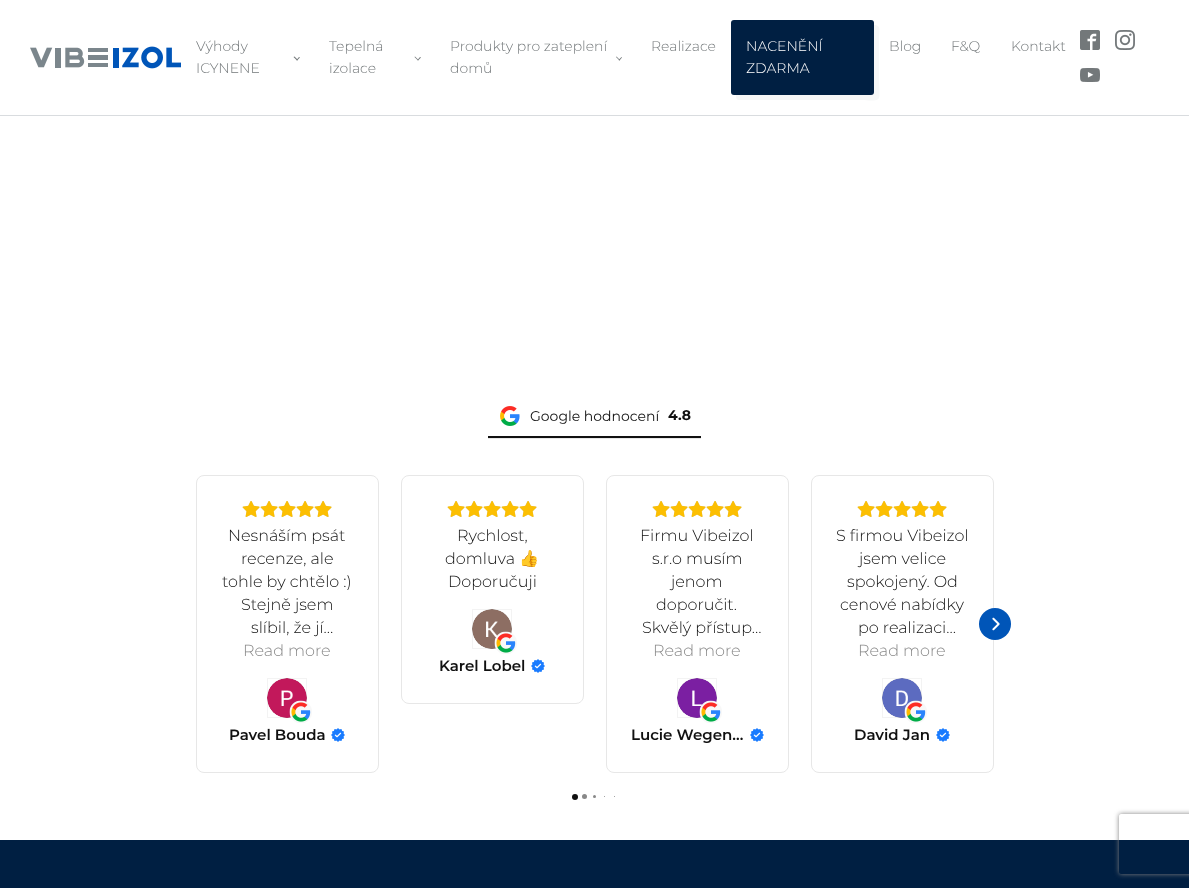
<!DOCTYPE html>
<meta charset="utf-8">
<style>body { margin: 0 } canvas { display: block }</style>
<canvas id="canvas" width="1189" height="888"></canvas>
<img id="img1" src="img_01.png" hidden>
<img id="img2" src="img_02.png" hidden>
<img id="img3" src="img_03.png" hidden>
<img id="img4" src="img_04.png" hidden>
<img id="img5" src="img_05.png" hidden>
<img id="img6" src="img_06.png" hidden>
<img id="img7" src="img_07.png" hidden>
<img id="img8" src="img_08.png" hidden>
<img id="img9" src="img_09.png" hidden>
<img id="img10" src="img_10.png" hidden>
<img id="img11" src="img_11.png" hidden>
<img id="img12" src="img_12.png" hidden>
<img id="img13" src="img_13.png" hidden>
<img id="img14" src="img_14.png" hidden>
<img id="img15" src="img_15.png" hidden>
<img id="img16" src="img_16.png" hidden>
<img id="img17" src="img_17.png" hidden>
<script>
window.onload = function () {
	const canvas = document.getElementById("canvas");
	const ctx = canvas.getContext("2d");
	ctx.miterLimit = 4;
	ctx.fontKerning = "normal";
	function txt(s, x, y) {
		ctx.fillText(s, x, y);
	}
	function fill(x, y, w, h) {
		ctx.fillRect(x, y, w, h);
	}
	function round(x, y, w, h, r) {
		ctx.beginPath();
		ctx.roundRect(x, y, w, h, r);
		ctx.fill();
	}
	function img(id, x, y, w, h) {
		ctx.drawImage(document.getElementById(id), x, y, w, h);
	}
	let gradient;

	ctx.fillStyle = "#FFFFFF";
	fill(0, 0, 1189, 888);
	ctx.fillStyle = "#D9DCDF";
	fill(0, 115, 1189, 1);
	img("img1", 30, 46, 151, 23);
	ctx.fillStyle = "#73787A";
	ctx.beginPath();
	ctx.moveTo(300, 57.5);
	ctx.lineTo(297, 60.5);
	ctx.lineTo(296.5, 60);
	ctx.lineTo(299, 57);
	ctx.closePath();
	ctx.fill();
	ctx.beginPath();
	ctx.moveTo(298, 60);
	ctx.lineTo(297, 60.5);
	ctx.lineTo(293.5, 57);
	ctx.lineTo(294.5, 56.5);
	ctx.closePath();
	ctx.fill();
	ctx.beginPath();
	ctx.moveTo(421, 57.5);
	ctx.lineTo(418, 60.5);
	ctx.lineTo(417.5, 60);
	ctx.lineTo(420, 57);
	ctx.closePath();
	ctx.fill();
	ctx.beginPath();
	ctx.moveTo(418.5, 60);
	ctx.lineTo(418, 60.5);
	ctx.lineTo(414.5, 57);
	ctx.lineTo(415, 56.5);
	ctx.closePath();
	ctx.fill();
	ctx.beginPath();
	ctx.moveTo(622, 57.5);
	ctx.lineTo(619.5, 60.5);
	ctx.lineTo(618.5, 60);
	ctx.lineTo(621.5, 57);
	ctx.closePath();
	ctx.fill();
	ctx.beginPath();
	ctx.moveTo(620, 60);
	ctx.lineTo(619.5, 60.5);
	ctx.lineTo(616, 57);
	ctx.lineTo(616.5, 56.5);
	ctx.closePath();
	ctx.fill();
	ctx.fillStyle = "#F6F7F7";
	ctx.beginPath();
	ctx.moveTo(736, 95);
	ctx.bezierCurveTo(736, 97, 736, 100, 739, 100);
	ctx.lineTo(853, 100);
	ctx.bezierCurveTo(886, 100, 879, 106, 879, 74);
	ctx.lineTo(879, 40);
	ctx.bezierCurveTo(879, 32, 882, 25, 874, 25);
	ctx.lineTo(874, 92);
	ctx.bezierCurveTo(874, 94, 873, 95, 871, 95);
	ctx.closePath();
	ctx.fill();
	ctx.fillStyle = "#001F42";
	round(731, 20, 143, 75, 3);
	img("img2", 1080, 30, 20, 20);
	img("img3", 1115, 30, 20, 20);
	img("img4", 1080, 68, 20, 14);
	ctx.fillStyle = "#E7E7E7";
	fill(488, 438, 213, 1);
	img("img5", 500, 406, 20, 20);
	ctx.fillStyle = "#111111";
	fill(488, 436, 213, 2);
	ctx.beginPath();
	ctx.roundRect(196.5, 475.5, 182, 297, 7.5);
	ctx.strokeStyle = "#E7E7E7";
	ctx.stroke();
	img("img6", 242, 501, 18, 16);
	img("img7", 242, 501, 18, 16);
	img("img6", 260, 501, 18, 16);
	img("img7", 260, 501, 18, 16);
	img("img6", 278, 501, 18, 16);
	img("img7", 278, 501, 18, 16);
	img("img6", 296, 501, 18, 16);
	img("img7", 296, 501, 18, 16);
	img("img6", 314, 501, 18, 16);
	img("img7", 314, 501, 18, 16);
	gradient = ctx.createLinearGradient(287, 678, 287, 718);
	gradient.addColorStop(0, "#F2F2F2");
	gradient.addColorStop(1, "#F7F7F7");
	ctx.fillStyle = gradient;
	ctx.beginPath();
	ctx.arc(287, 698, 20, 0, Math.PI * 2);
	ctx.fill();
	img("img8", 267, 678, 40, 40);
	ctx.strokeStyle = "rgba(17, 17, 17, 0.05)";
	ctx.strokeRect(267.5, 678.5, 39, 39);
	img("img9", 289, 700, 23, 23);
	img("img10", 331, 728, 14, 14);
	ctx.beginPath();
	ctx.roundRect(401.5, 475.5, 182, 228, 7.5);
	ctx.strokeStyle = "#E7E7E7";
	ctx.stroke();
	img("img6", 447, 501, 18, 16);
	img("img7", 447, 501, 18, 16);
	img("img6", 465, 501, 18, 16);
	img("img7", 465, 501, 18, 16);
	img("img6", 483, 501, 18, 16);
	img("img7", 483, 501, 18, 16);
	img("img6", 501, 501, 18, 16);
	img("img7", 501, 501, 18, 16);
	img("img6", 519, 501, 18, 16);
	img("img7", 519, 501, 18, 16);
	gradient = ctx.createLinearGradient(492, 609, 492, 649);
	gradient.addColorStop(0, "#F2F2F2");
	gradient.addColorStop(1, "#F7F7F7");
	ctx.fillStyle = gradient;
	ctx.beginPath();
	ctx.arc(492, 629, 20, 0, Math.PI * 2);
	ctx.fill();
	img("img11", 472, 609, 40, 40);
	ctx.strokeStyle = "rgba(17, 17, 17, 0.05)";
	ctx.strokeRect(472.5, 609.5, 39, 39);
	img("img12", 494, 631, 23, 23);
	img("img10", 531, 659, 14, 14);
	ctx.beginPath();
	ctx.roundRect(606.5, 475.5, 182, 297, 7.5);
	ctx.strokeStyle = "#E7E7E7";
	ctx.stroke();
	img("img6", 652, 501, 18, 16);
	img("img7", 652, 501, 18, 16);
	img("img6", 670, 501, 18, 16);
	img("img7", 670, 501, 18, 16);
	img("img6", 688, 501, 18, 16);
	img("img7", 688, 501, 18, 16);
	img("img6", 706, 501, 18, 16);
	img("img7", 706, 501, 18, 16);
	img("img6", 724, 501, 18, 16);
	img("img7", 724, 501, 18, 16);
	gradient = ctx.createLinearGradient(697, 678, 697, 718);
	gradient.addColorStop(0, "#F2F2F2");
	gradient.addColorStop(1, "#F7F7F7");
	ctx.fillStyle = gradient;
	ctx.beginPath();
	ctx.arc(697, 698, 20, 0, Math.PI * 2);
	ctx.fill();
	img("img13", 677, 678, 40, 40);
	ctx.strokeStyle = "rgba(17, 17, 17, 0.05)";
	ctx.strokeRect(677.5, 678.5, 39, 39);
	img("img14", 699, 700, 23, 23);
	img("img10", 750, 728, 14, 14);
	ctx.beginPath();
	ctx.roundRect(811.5, 475.5, 182, 297, 7.5);
	ctx.strokeStyle = "#E7E7E7";
	ctx.stroke();
	img("img6", 857, 501, 18, 16);
	img("img7", 857, 501, 18, 16);
	img("img6", 875, 501, 18, 16);
	img("img7", 875, 501, 18, 16);
	img("img6", 893, 501, 18, 16);
	img("img7", 893, 501, 18, 16);
	img("img6", 911, 501, 18, 16);
	img("img7", 911, 501, 18, 16);
	img("img6", 929, 501, 18, 16);
	img("img7", 929, 501, 18, 16);
	gradient = ctx.createLinearGradient(902, 678, 902, 718);
	gradient.addColorStop(0, "#F2F2F2");
	gradient.addColorStop(1, "#F7F7F7");
	ctx.fillStyle = gradient;
	ctx.beginPath();
	ctx.arc(902, 698, 20, 0, Math.PI * 2);
	ctx.fill();
	img("img15", 882, 678, 40, 40);
	ctx.strokeStyle = "rgba(17, 17, 17, 0.05)";
	ctx.strokeRect(882.5, 678.5, 39, 39);
	img("img16", 904, 700, 23, 23);
	img("img10", 936, 728, 14, 14);
	ctx.fillStyle = "#0055B8";
	ctx.beginPath();
	ctx.arc(995, 624, 16, 0, Math.PI * 2);
	ctx.fill();
	img("img17", 992, 617, 8, 14);
	ctx.fillStyle = "#111111";
	ctx.beginPath();
	ctx.arc(575, 797, 3, 0, Math.PI * 2);
	ctx.fill();
	ctx.fillStyle = "#888888";
	ctx.beginPath();
	ctx.arc(584.5, 796.5, 2.5, 0, Math.PI * 2);
	ctx.fill();
	ctx.beginPath();
	ctx.arc(594.5, 796.5, 1.5, 0, Math.PI * 2);
	ctx.fill();
	ctx.beginPath();
	ctx.arc(604.5, 796.5, 0.5, 0, Math.PI * 2);
	ctx.fill();
	ctx.beginPath();
	ctx.arc(614.5, 796.5, 0.5, 0, Math.PI * 2);
	ctx.fill();
	ctx.fillStyle = "#001F42";
	fill(0, 840, 1189, 48);
	ctx.save();
	ctx.beginPath();
	ctx.moveTo(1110, 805);
	ctx.lineTo(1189, 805);
	ctx.lineTo(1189, 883);
	ctx.lineTo(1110, 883);
	ctx.closePath();
	ctx.moveTo(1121, 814);
	ctx.lineTo(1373, 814);
	ctx.bezierCurveTo(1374, 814, 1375, 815, 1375, 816);
	ctx.lineTo(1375, 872);
	ctx.bezierCurveTo(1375, 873, 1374, 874, 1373, 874);
	ctx.lineTo(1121, 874);
	ctx.bezierCurveTo(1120, 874, 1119, 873, 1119, 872);
	ctx.lineTo(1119, 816);
	ctx.bezierCurveTo(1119, 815, 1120, 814, 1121, 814);
	ctx.closePath();
	ctx.clip("evenodd");
	ctx.fillStyle = "#808080";
	ctx.filter = "blur(2.5px)";
	ctx.beginPath();
	ctx.roundRect(1119, 814, 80, 60, 2);
	ctx.fill();
	ctx.filter = "none";
	ctx.restore();
	ctx.font = "300 14px Montserrat";
	ctx.fillStyle = "#73787A";
	txt("Výhody", 196, 51);
	txt("ICYNENE", 196, 73);
	txt("Tepelná", 329, 51);
	txt("izolace", 329, 73);
	txt("Produkty pro zateplení", 450, 51);
	txt("domů", 450, 73);
	txt("Realizace", 651, 51);
	ctx.fillStyle = "#FFFFFF";
	txt("NACENĚNÍ", 746, 51);
	txt("ZDARMA", 746, 73);
	ctx.fillStyle = "#73787A";
	txt("Blog", 889, 51);
	txt("F&Q", 951, 51);
	txt("Kontakt", 1011, 51);
	ctx.font = "14px Montserrat";
	ctx.fillStyle = "#111111";
	txt("Google hodnocení", 530, 421);
	ctx.font = "bold 14px Montserrat";
	txt("4.8", 668, 420);
	ctx.font = "300 16px Montserrat";
	txt("Nesnáším psát", 228, 541);
	txt("recenze, ale", 241, 564);
	txt("tohle by chtělo :)", 222, 587);
	txt("Stejně jsem", 241, 610);
	txt("slíbil, že jí…", 251, 633);
	ctx.fillStyle = "#888888";
	txt("Read more", 243, 656);
	ctx.font = "600 15px Montserrat";
	ctx.fillStyle = "#111111";
	txt("Pavel Bouda", 229, 740);
	ctx.font = "300 16px Montserrat";
	txt("Rychlost,", 457, 541);
	txt("domluva", 445, 564);
	ctx.font = "16px Noto Color Emoji";
	txt("👍", 519, 564);
	ctx.font = "300 16px Montserrat";
	txt("Doporučuji", 448, 587);
	ctx.font = "600 15px Montserrat";
	txt("Karel Lobel", 439, 671);
	ctx.font = "300 16px Montserrat";
	txt("Firmu Vibeizol", 640, 541);
	txt("s.r.o musím", 652, 564);
	txt("jenom", 671, 587);
	txt("doporučit.", 656, 610);
	txt("Skvělý přístup…", 642, 633);
	ctx.fillStyle = "#888888";
	txt("Read more", 653, 656);
	ctx.font = "600 15px Montserrat";
	ctx.fillStyle = "#111111";
	txt("Lucie Wegen…", 631, 740);
	ctx.font = "300 16px Montserrat";
	txt("S firmou Vibeizol", 836, 541);
	txt("jsem velice", 859, 564);
	txt("spokojený. Od", 847, 587);
	txt("cenové nabídky", 840, 610);
	txt("po realizaci…", 858, 633);
	ctx.fillStyle = "#888888";
	txt("Read more", 858, 656);
	ctx.font = "600 15px Montserrat";
	ctx.fillStyle = "#111111";
	txt("David Jan", 854, 740);
};
</script>
